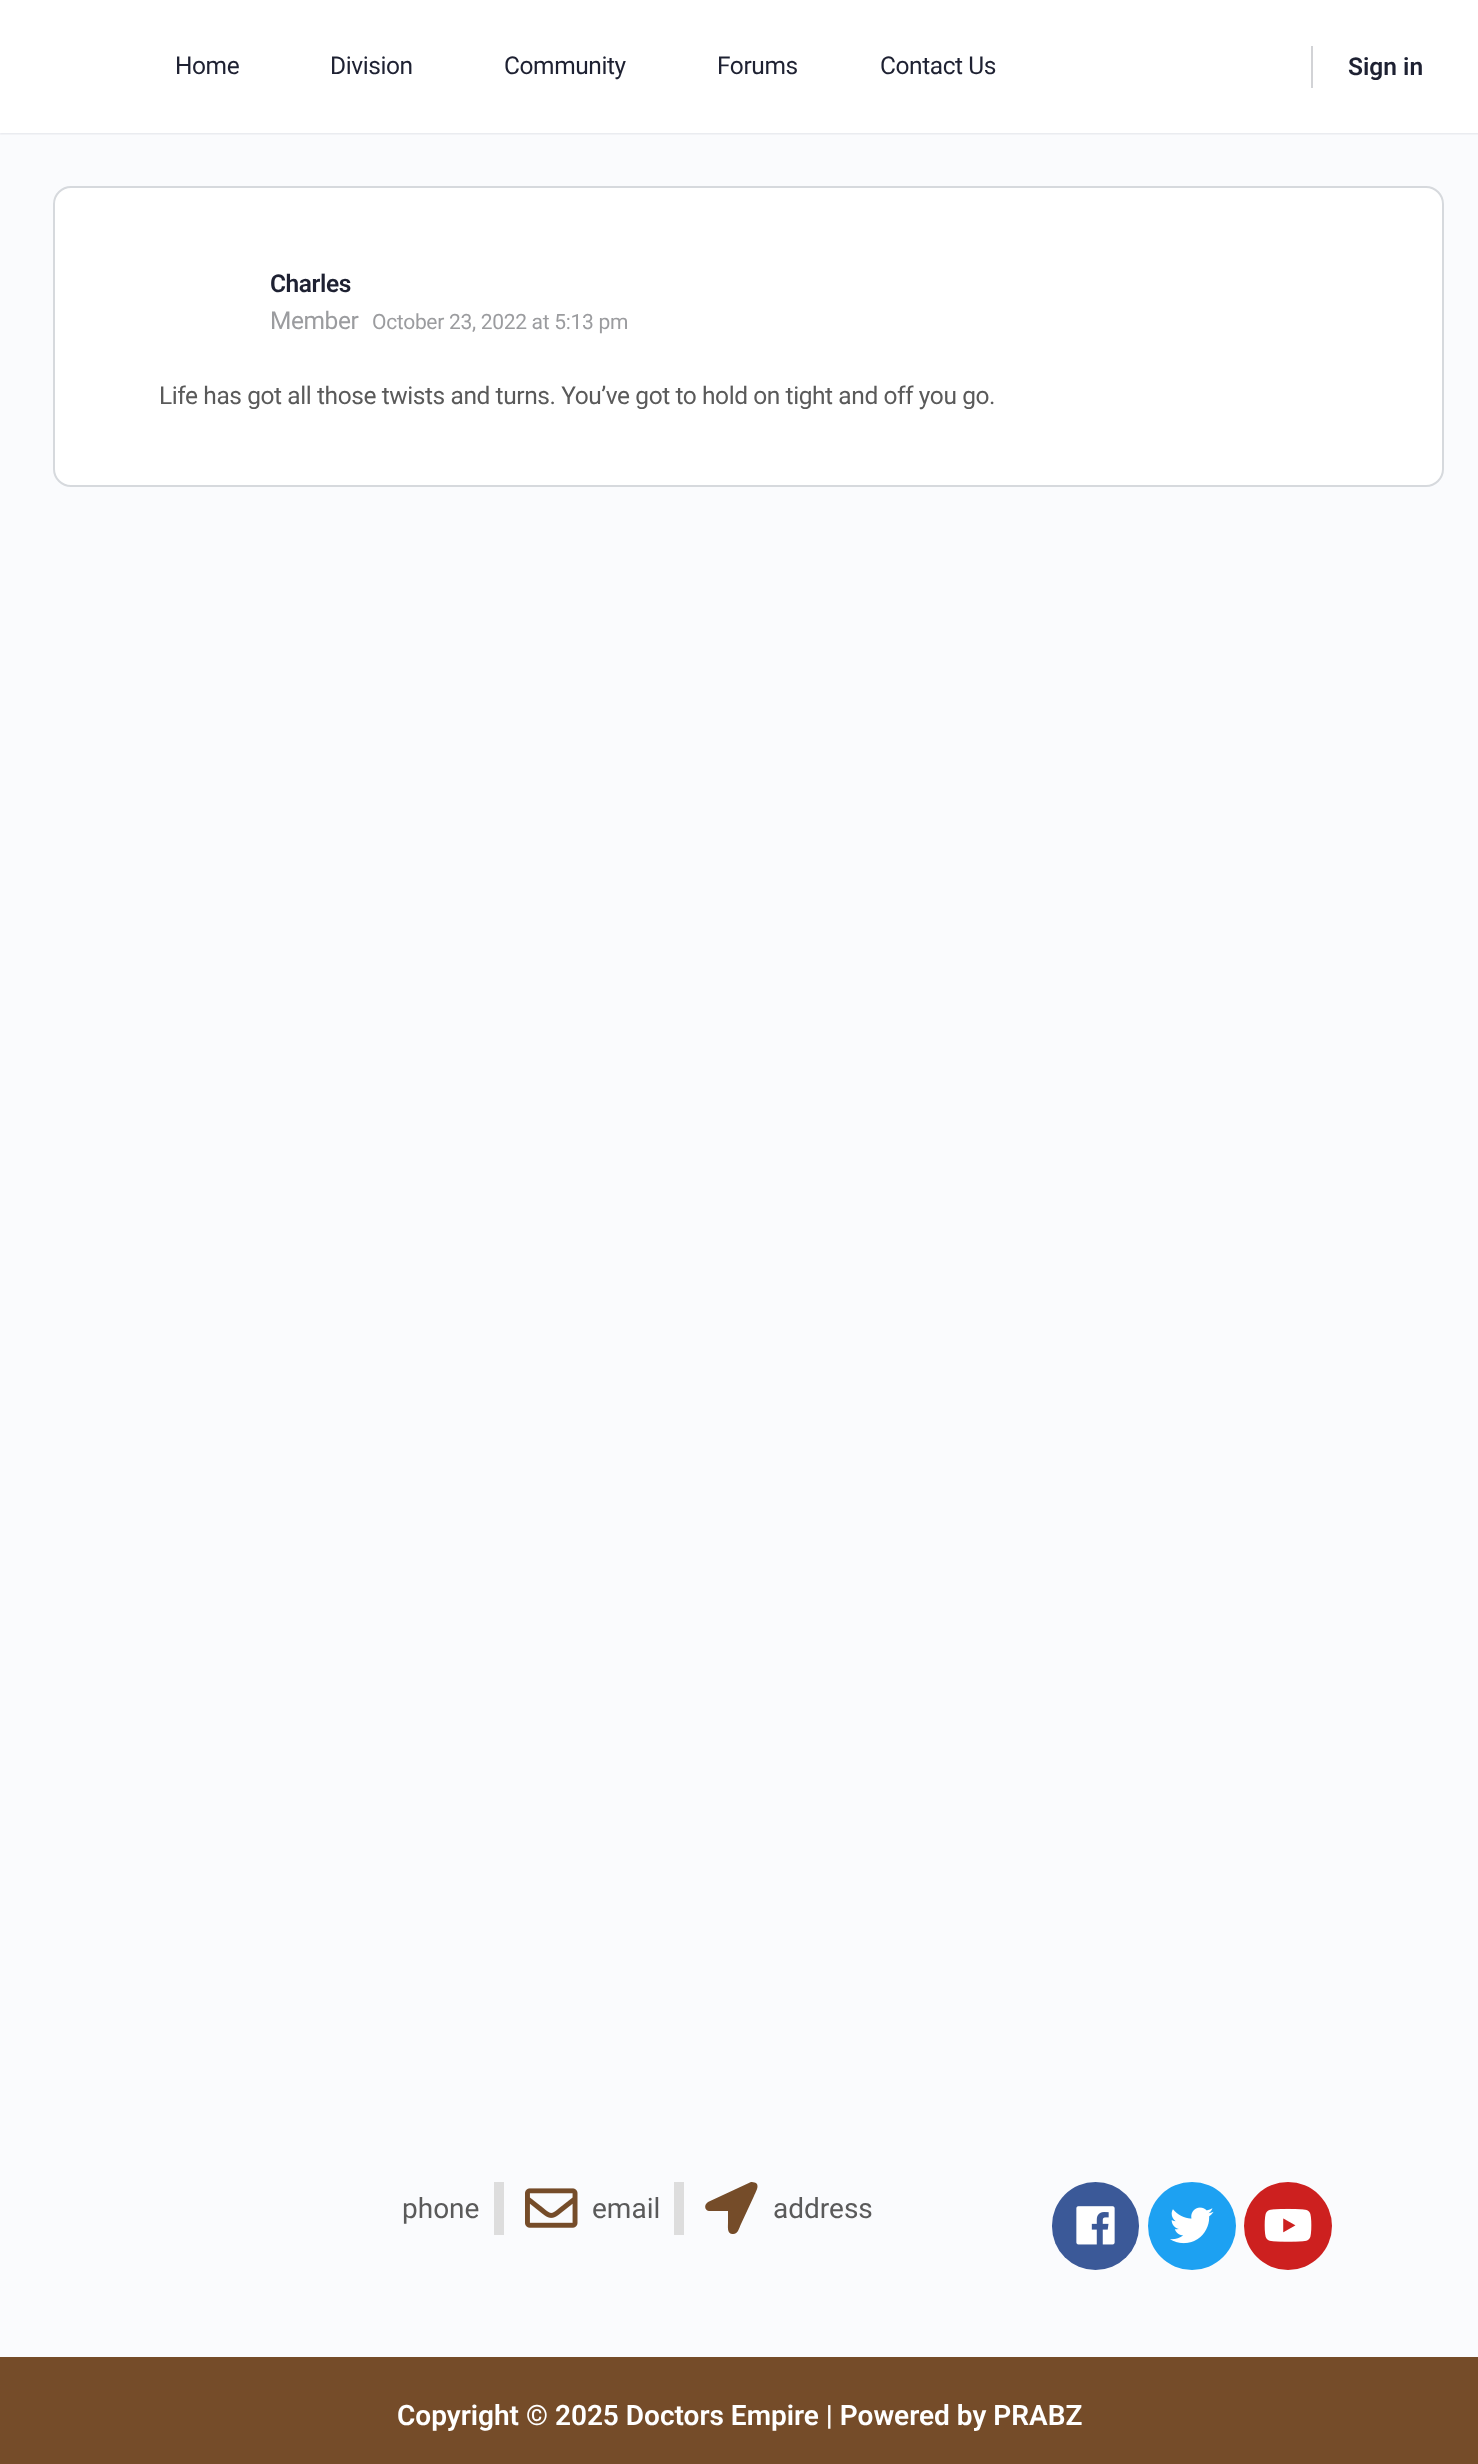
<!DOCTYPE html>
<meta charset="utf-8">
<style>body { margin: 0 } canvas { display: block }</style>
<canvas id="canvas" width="1478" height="2464"></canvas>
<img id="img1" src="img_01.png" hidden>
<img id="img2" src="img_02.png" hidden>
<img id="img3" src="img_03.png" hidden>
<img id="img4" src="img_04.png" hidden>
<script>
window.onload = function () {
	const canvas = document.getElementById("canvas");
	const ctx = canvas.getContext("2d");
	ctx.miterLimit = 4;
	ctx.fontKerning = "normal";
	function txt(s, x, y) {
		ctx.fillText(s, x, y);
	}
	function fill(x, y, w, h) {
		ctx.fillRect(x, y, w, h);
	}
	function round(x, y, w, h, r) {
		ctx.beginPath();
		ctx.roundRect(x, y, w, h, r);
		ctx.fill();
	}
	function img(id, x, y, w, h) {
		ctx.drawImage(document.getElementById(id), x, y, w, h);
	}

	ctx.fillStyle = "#FAFBFD";
	fill(0, 0, 1478, 2464);
	ctx.fillStyle = "rgba(65, 71, 108, 0.15)";
	ctx.filter = "blur(1px)";
	ctx.beginPath();
	ctx.rect(0, 0, 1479, 133);
	ctx.fill();
	ctx.filter = "none";
	ctx.fillStyle = "rgba(139, 141, 157, 0.05)";
	ctx.beginPath();
	ctx.moveTo(0, 133);
	ctx.lineTo(0, 135);
	ctx.lineTo(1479, 135);
	ctx.lineTo(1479, 2);
	ctx.lineTo(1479, 133);
	ctx.closePath();
	ctx.fill();
	ctx.fillStyle = "#FFFFFF";
	fill(0, 0, 1478, 133);
	ctx.fillStyle = "#D2D3D6";
	fill(1311, 46, 2, 42);
	ctx.fillStyle = "#FFFFFF";
	ctx.beginPath();
	ctx.roundRect(54, 187, 1389, 299, 17);
	ctx.fill();
	ctx.strokeStyle = "#D6D9DD";
	ctx.lineWidth = 2;
	ctx.stroke();
	ctx.fillStyle = "#DDDDDD";
	fill(494, 2182, 10, 53);
	img("img1", 525, 2188, 53, 40);
	fill(674, 2182, 10, 53);
	ctx.fillStyle = "#754C29";
	ctx.beginPath();
	ctx.moveTo(751, 2182);
	ctx.lineTo(708, 2202);
	ctx.lineTo(706, 2204);
	ctx.bezierCurveTo(704, 2207, 706, 2211, 709, 2211);
	ctx.lineTo(728, 2211);
	ctx.lineTo(728, 2223);
	ctx.bezierCurveTo(728, 2227, 727, 2233, 732, 2234);
	ctx.bezierCurveTo(738, 2235, 739, 2228, 741, 2224);
	ctx.lineTo(754, 2196);
	ctx.bezierCurveTo(755, 2193, 760, 2186, 756, 2183);
	ctx.bezierCurveTo(754, 2182, 752, 2182, 751, 2182);
	ctx.closePath();
	ctx.fill();
	ctx.fillStyle = "#3B5998";
	round(1052, 2182, 87, 88, 43.5);
	img("img2", 1076, 2206, 39, 39);
	ctx.fillStyle = "#1DA1F2";
	ctx.beginPath();
	ctx.arc(1192, 2226, 44, 0, Math.PI * 2);
	ctx.fill();
	img("img3", 1170, 2207, 44, 37);
	ctx.fillStyle = "#CD201F";
	ctx.beginPath();
	ctx.arc(1288, 2226, 44, 0, Math.PI * 2);
	ctx.fill();
	img("img4", 1264, 2208, 48, 34);
	ctx.fillStyle = "#754C29";
	fill(0, 2357, 1478, 107);
	ctx.letterSpacing = "-0.42px";
	ctx.font = "24.5px Roboto";
	ctx.fillStyle = "#1E2132";
	txt("Home", 175, 74);
	txt("Division", 330, 74);
	txt("Community", 504, 74);
	txt("Forums", 717, 74);
	txt("Contact Us", 880, 74);
	ctx.letterSpacing = "0px";
	ctx.font = "600 24.5px Roboto";
	txt("Sign in", 1348, 75);
	ctx.letterSpacing = "-0.42px";
	txt("Charles", 270, 292);
	ctx.font = "24.5px Roboto";
	ctx.fillStyle = "#9B9C9F";
	txt("Member", 270, 329);
	ctx.letterSpacing = "-0.3px";
	ctx.font = "21px Roboto";
	txt("October 23, 2022 at 5:13 pm", 372, 329);
	ctx.letterSpacing = "-0.42px";
	ctx.font = "24.5px Roboto";
	ctx.fillStyle = "#5A5A5A";
	txt("Life has got all those twists and turns. You’ve got to hold on tight and off you go.", 159, 404);
	ctx.letterSpacing = "0px";
	ctx.font = "28px Roboto";
	txt("phone", 402, 2218);
	txt("email", 592, 2218);
	txt("address", 773, 2218);
	ctx.font = "600 28px Roboto";
	ctx.fillStyle = "#FFFFFF";
	txt("Copyright © 2025 Doctors Empire | Powered by PRABZ", 397, 2425);
};
</script>
